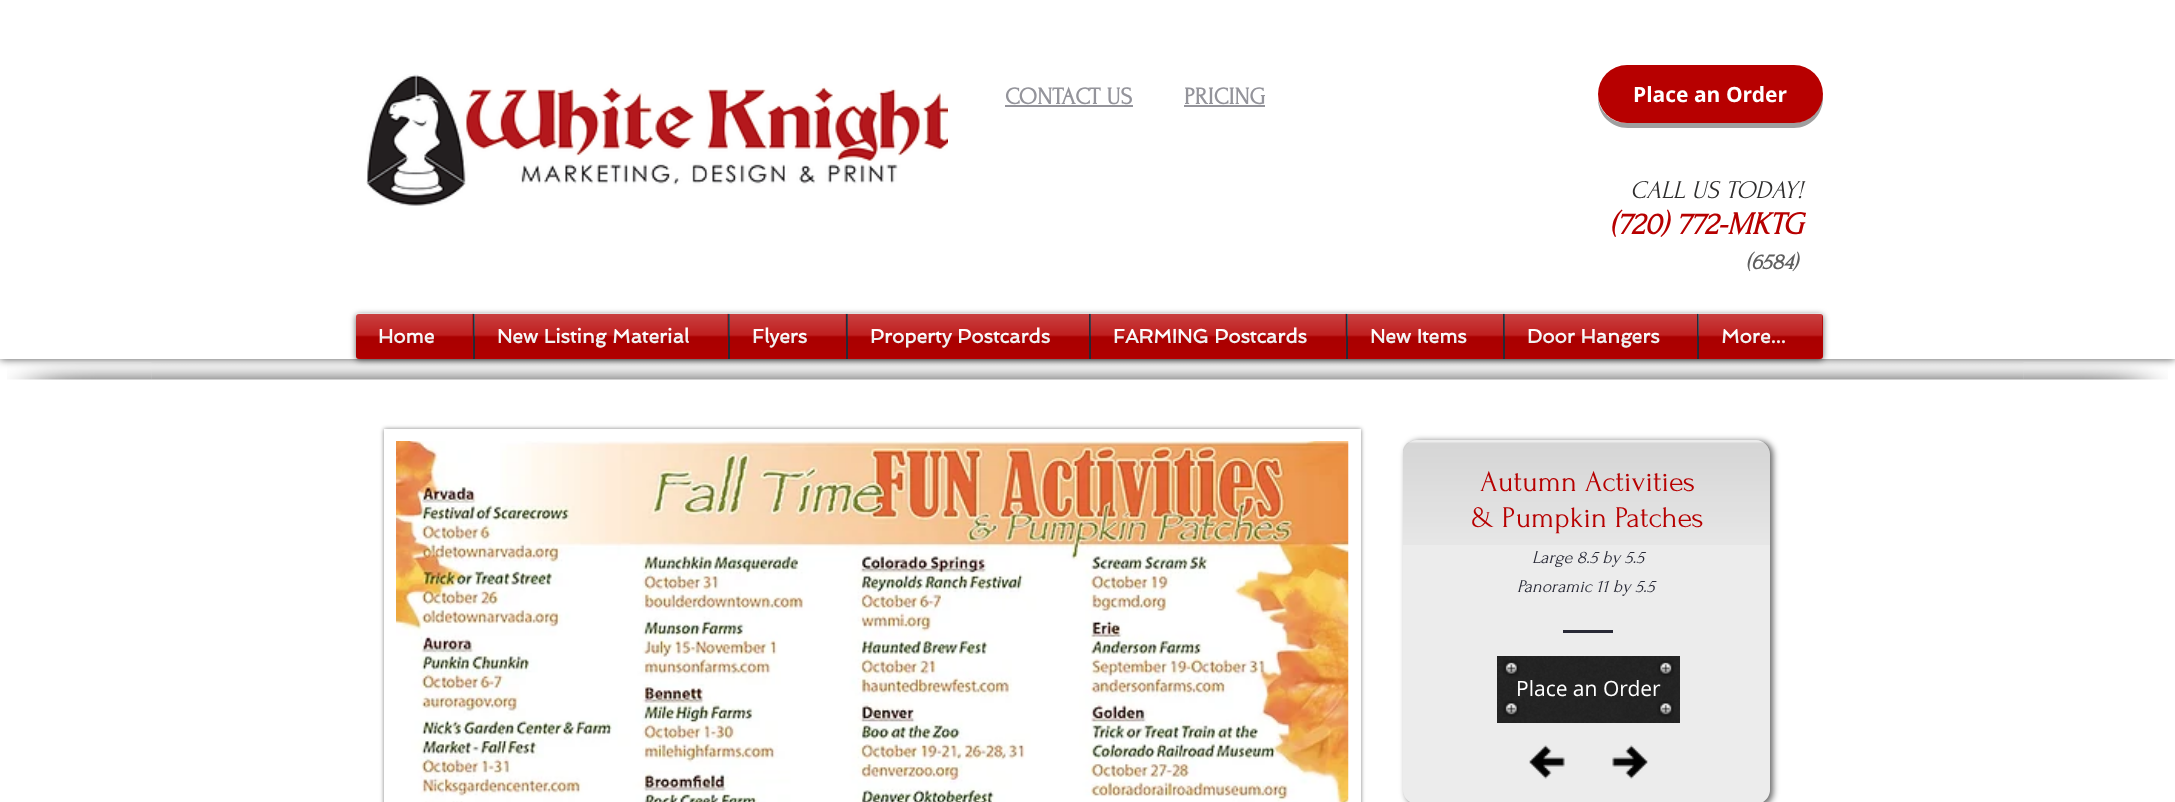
<!DOCTYPE html>
<meta charset="utf-8">
<style>body { margin: 0 } canvas { display: block }</style>
<canvas id="canvas" width="2175" height="802"></canvas>
<img id="img1" src="img_12.png" hidden>
<img id="img2" src="img_11.png" hidden>
<img id="img3" src="img_13.png" hidden>
<img id="img4" src="img_01.png" hidden>
<img id="img5" src="img_02.png" hidden>
<img id="img6" src="img_14.png" hidden>
<img id="img7" src="img_15.png" hidden>
<img id="img8" src="img_16.png" hidden>
<img id="img9" src="img_17.png" hidden>
<img id="img10" src="img_18.png" hidden>
<img id="img11" src="img_19.png" hidden>
<img id="img12" src="img_20.png" hidden>
<img id="img13" src="img_21.png" hidden>
<img id="img14" src="img_22.png" hidden>
<img id="img15" src="img_03.png" hidden>
<img id="img16" src="img_04.png" hidden>
<img id="img17" src="img_05.png" hidden>
<img id="img18" src="img_06.png" hidden>
<img id="img19" src="img_07.png" hidden>
<img id="img20" src="img_08.png" hidden>
<img id="img21" src="img_09.png" hidden>
<img id="img22" src="img_10.png" hidden>
<script>
window.onload = function () {
	const canvas = document.getElementById("canvas");
	const ctx = canvas.getContext("2d");
	ctx.miterLimit = 4;
	ctx.fontKerning = "normal";
	function txt(s, x, y) {
		ctx.fillText(s, x, y);
	}
	function fill(x, y, w, h) {
		ctx.fillRect(x, y, w, h);
	}
	function round(x, y, w, h, r) {
		ctx.beginPath();
		ctx.roundRect(x, y, w, h, r);
		ctx.fill();
	}
	function img(id, x, y, w, h) {
		ctx.drawImage(document.getElementById(id), x, y, w, h);
	}

	ctx.fillStyle = "#FFFFFF";
	fill(0, 0, 2175, 802);
	img("img1", 151, 362, 1873, 18);
	img("img2", 7, 363, 145, 17);
	img("img3", 2023, 363, 145, 17);
	ctx.fillStyle = "rgba(0, 0, 0, 0.7)";
	ctx.filter = "blur(4px)";
	ctx.beginPath();
	ctx.rect(0, 0, 2175, 359);
	ctx.fill();
	ctx.filter = "none";
	ctx.fillStyle = "#FFFFFF";
	fill(0, 0, 2175, 359);
	img("img4", 366, 74, 582, 132);
	ctx.fillStyle = "#94949B";
	fill(1005, 105, 128, 2);
	fill(1184, 105, 81, 2);
	ctx.fillStyle = "#9F9F9F";
	ctx.beginPath();
	ctx.moveTo(1598, 99);
	ctx.bezierCurveTo(1598, 115, 1611, 128, 1628, 128);
	ctx.lineTo(1794, 128);
	ctx.bezierCurveTo(1810, 128, 1823, 115, 1823, 98);
	ctx.lineTo(1822, 93);
	ctx.lineTo(1822, 94);
	ctx.bezierCurveTo(1822, 110, 1809, 123, 1793, 123);
	ctx.lineTo(1627, 123);
	ctx.bezierCurveTo(1612, 123, 1601, 113, 1598, 99);
	ctx.closePath();
	ctx.fill();
	ctx.fillStyle = "#B70000";
	round(1598, 65, 225, 58, 29);
	ctx.fillStyle = "rgba(0, 0, 0, 0.6)";
	ctx.filter = "blur(3px)";
	ctx.beginPath();
	ctx.roundRect(356, 315, 1467, 45, 3);
	ctx.fill();
	ctx.filter = "none";
	img("img5", 356, 313, 1467, 44);
	ctx.fillStyle = "#B70000";
	ctx.beginPath();
	ctx.roundRect(356, 314, 117, 45, [3, 0, 0, 3]);
	ctx.fill();
	fill(475, 314, 253, 45);
	ctx.fillStyle = "#282936";
	fill(473, 314, 2, 45);
	ctx.fillStyle = "#B70000";
	fill(730, 314, 116, 45);
	ctx.fillStyle = "#282936";
	fill(728, 314, 2, 45);
	ctx.fillStyle = "#B70000";
	fill(848, 314, 241, 45);
	fill(1091, 314, 255, 45);
	ctx.fillStyle = "#282936";
	fill(1089, 314, 2, 45);
	ctx.fillStyle = "#B70000";
	fill(1348, 314, 155, 45);
	ctx.fillStyle = "#282936";
	fill(1346, 314, 2, 45);
	ctx.fillStyle = "#B70000";
	fill(1505, 314, 192, 45);
	ctx.fillStyle = "#282936";
	fill(1503, 314, 2, 45);
	ctx.fillStyle = "#B70000";
	ctx.beginPath();
	ctx.roundRect(1697, 314, 126, 45, [0, 3, 3, 0]);
	ctx.fill();
	ctx.fillStyle = "#282936";
	fill(1697, 314, 2, 45);
	ctx.fillStyle = "rgba(0, 0, 0, 0.5)";
	ctx.filter = "blur(2px)";
	ctx.beginPath();
	ctx.rect(384, 429, 977, 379);
	ctx.fill();
	ctx.filter = "none";
	ctx.fillStyle = "#FFFFFF";
	fill(384, 429, 977, 373);
	img("img6", 396, 441, 953, 361);
	ctx.save();
	ctx.beginPath();
	ctx.moveTo(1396, 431);
	ctx.lineTo(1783, 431);
	ctx.lineTo(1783, 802);
	ctx.lineTo(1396, 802);
	ctx.closePath();
	ctx.moveTo(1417, 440);
	ctx.lineTo(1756, 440);
	ctx.bezierCurveTo(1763.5, 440, 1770, 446.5, 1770, 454);
	ctx.lineTo(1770, 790);
	ctx.bezierCurveTo(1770, 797.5, 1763.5, 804, 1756, 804);
	ctx.lineTo(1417, 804);
	ctx.bezierCurveTo(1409.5, 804, 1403, 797.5, 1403, 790);
	ctx.lineTo(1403, 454);
	ctx.bezierCurveTo(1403, 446.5, 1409.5, 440, 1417, 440);
	ctx.closePath();
	ctx.clip("evenodd");
	ctx.fillStyle = "rgba(0, 0, 0, 0.6)";
	ctx.filter = "blur(3px)";
	ctx.beginPath();
	ctx.roundRect(1406, 441, 367, 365, 14);
	ctx.fill();
	ctx.filter = "none";
	ctx.restore();
	ctx.fillStyle = "rgba(95, 95, 95, 0.12)";
	round(1403, 440, 367, 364, 14);
	img("img7", 1403, 442, 367, 103);
	ctx.fillStyle = "#282936";
	fill(1563, 630, 50, 3);
	ctx.fillStyle = "#232323";
	fill(1497, 654, 183, 69);
	img("img8", 1497, 654, 183, 69);
	ctx.fillStyle = "rgba(255, 255, 255, 0.92)";
	fill(1497, 654, 183, 2);
	img("img9", 1503, 660, 17, 17);
	img("img10", 1657, 660, 17, 17);
	img("img11", 1503, 700, 17, 17);
	img("img12", 1657, 700, 17, 17);
	img("img13", 1529, 745, 36, 34);
	img("img14", 1612, 745, 36, 34);
	ctx.font = "bold 24px Forum";
	ctx.fillStyle = "#94949B";
	txt("CONTACT US", 1005, 104);
	txt("PRICING", 1184, 104);
	ctx.font = "bold 21px Open Sans";
	ctx.fillStyle = "#FFFFFF";
	txt("Place an Order", 1633, 102);
	ctx.font = "italic 25.5px Forum";
	ctx.fillStyle = "#2F2E2E";
	txt("CALL US TODAY!", 1630, 198);
	ctx.font = "italic bold 31.5px Forum";
	ctx.fillStyle = "#B70000";
	txt("(720) 772-MKTG", 1610, 234);
	ctx.font = "italic bold 22.5px Forum";
	ctx.fillStyle = "#5F5F5F";
	txt("(6584)", 1746, 269);
	ctx.font = "bold 19.5px Spinnaker";
	ctx.fillStyle = "#FFFFFF";
	txt("Home", 378, 343);
	img("img15", 356, 313, 117, 45);
	txt("New Listing Material", 497, 343);
	img("img16", 474, 313, 254, 45);
	txt("Flyers", 752, 343);
	img("img17", 728, 313, 119, 45);
	ctx.fillStyle = "#282936";
	fill(846, 314, 2, 45);
	ctx.fillStyle = "#FFFFFF";
	txt("Property Postcards", 870, 343);
	img("img18", 847, 313, 242, 45);
	txt("FARMING Postcards", 1113, 343);
	img("img19", 1090, 313, 256, 45);
	txt("New Items", 1370, 343);
	img("img20", 1347, 313, 156, 45);
	txt("Door Hangers", 1527, 343);
	img("img21", 1504, 313, 193, 45);
	txt("More...", 1721, 343);
	img("img22", 1698, 313, 125, 45);
	ctx.font = "30px Forum";
	ctx.fillStyle = "#B70000";
	txt("Autumn Activities", 1480, 491);
	txt("& Pumpkin Patches", 1471, 527);
	ctx.font = "italic 18px Forum";
	ctx.fillStyle = "#282936";
	txt("Large 8.5 by 5.5", 1532, 563);
	txt("Panoramic 11 by 5.5", 1517, 592);
	ctx.font = "21px Open Sans";
	ctx.fillStyle = "#FFFFFF";
	txt("Place an Order", 1516, 696);
};
</script>
